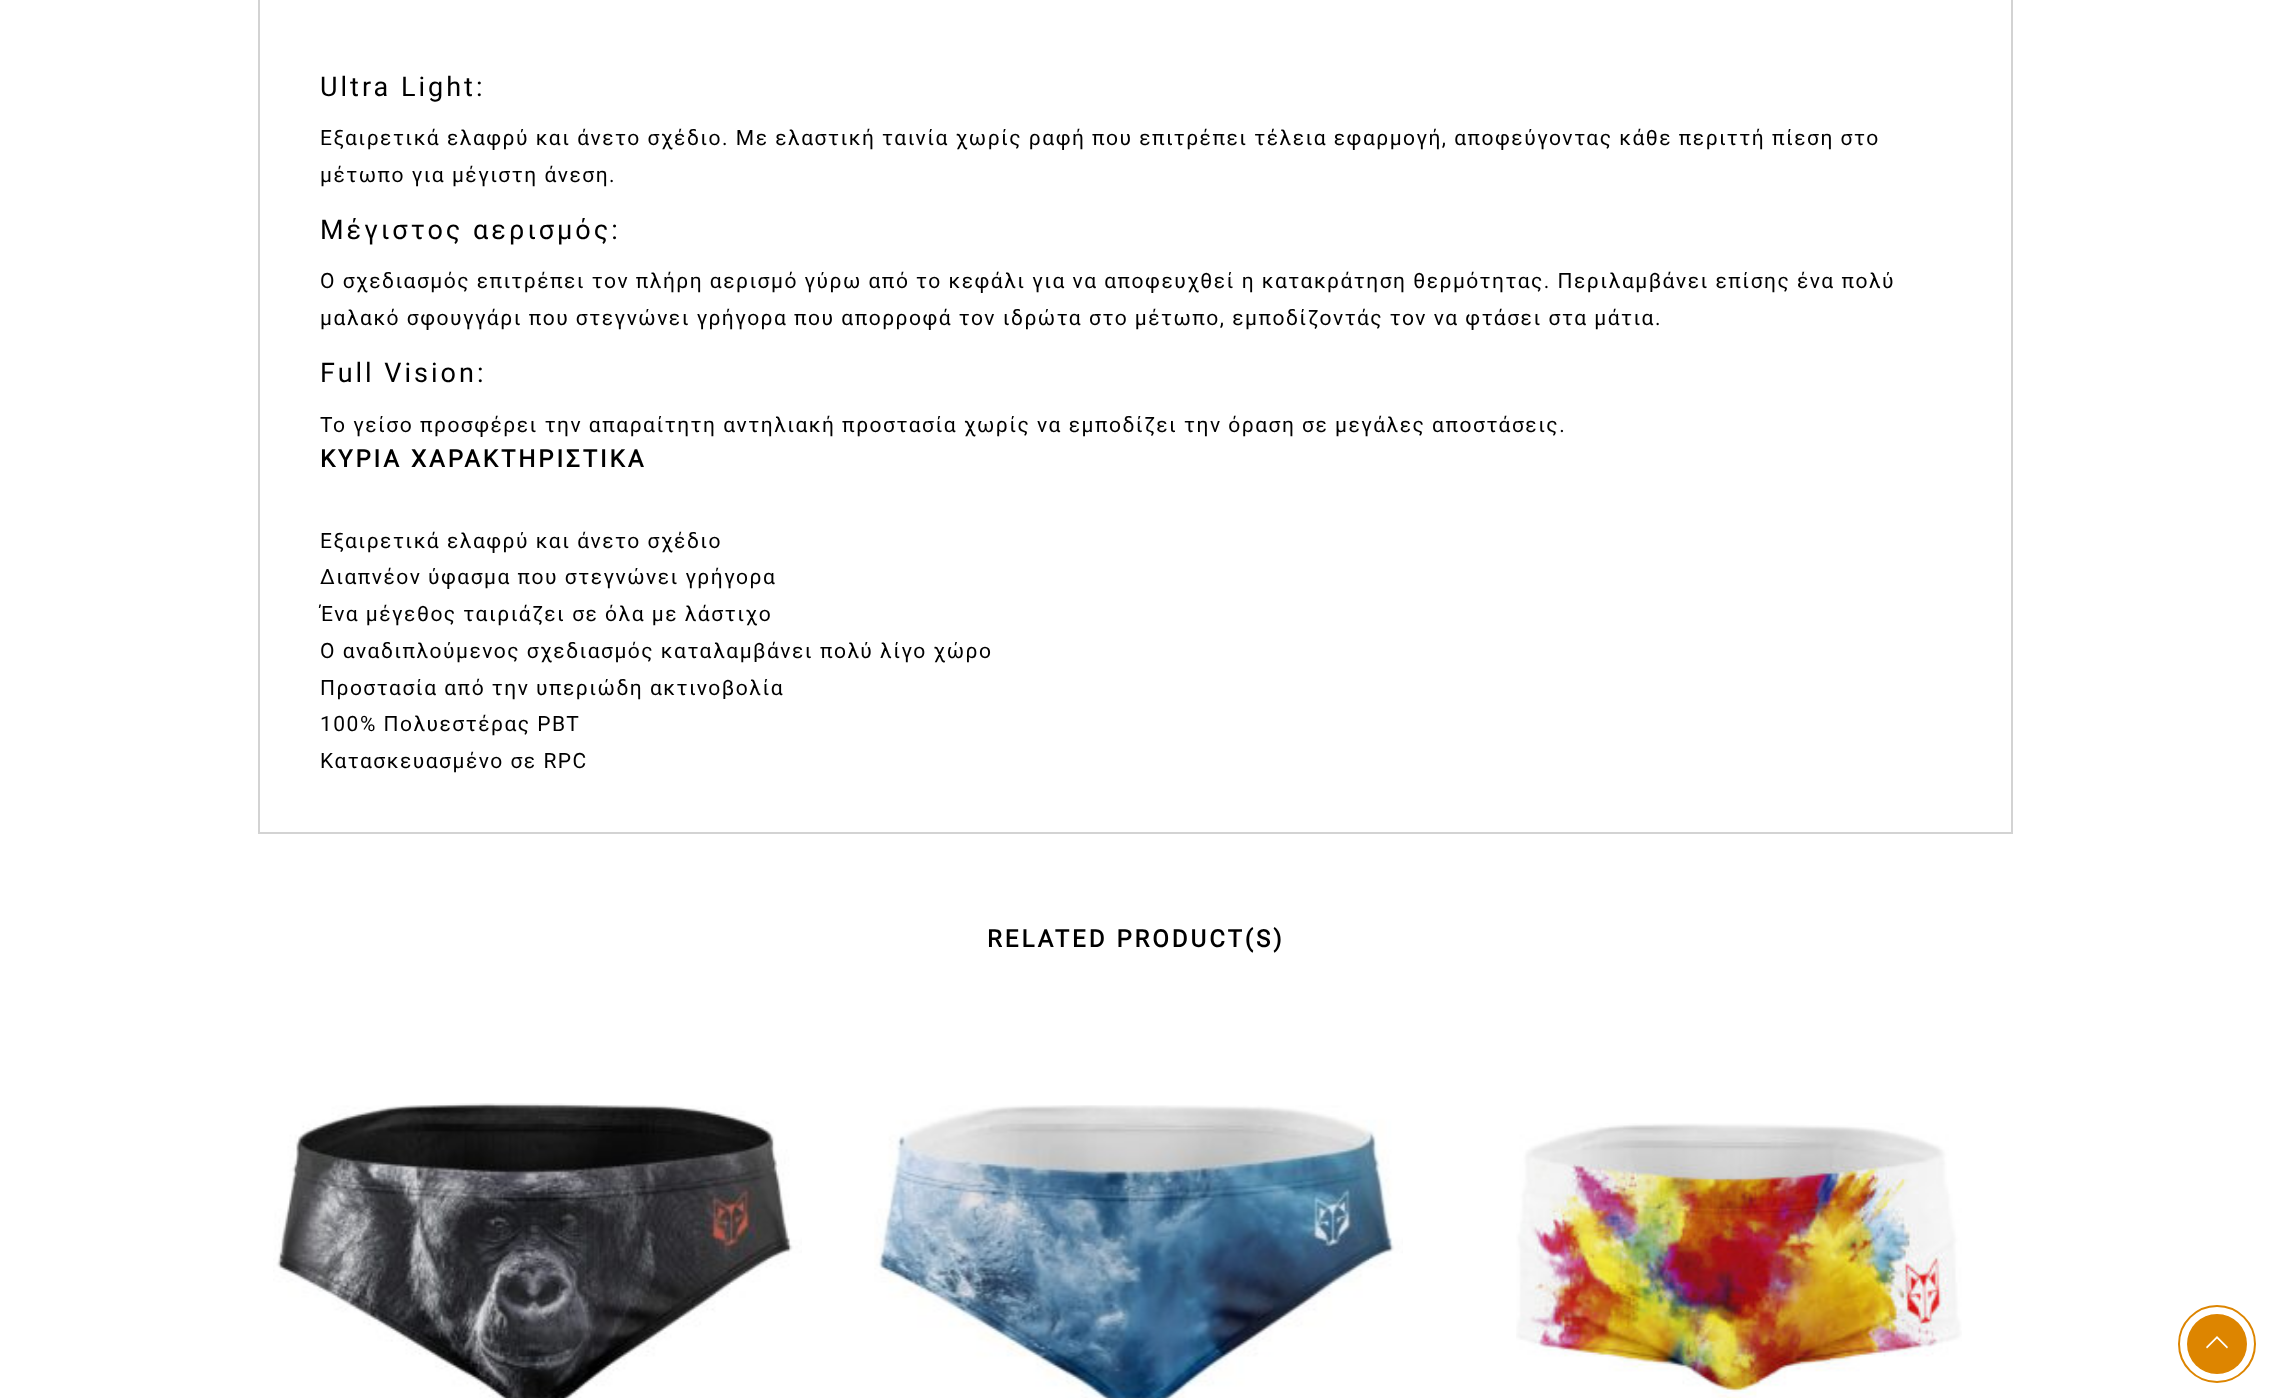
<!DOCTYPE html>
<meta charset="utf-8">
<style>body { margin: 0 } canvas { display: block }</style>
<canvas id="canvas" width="2271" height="1398"></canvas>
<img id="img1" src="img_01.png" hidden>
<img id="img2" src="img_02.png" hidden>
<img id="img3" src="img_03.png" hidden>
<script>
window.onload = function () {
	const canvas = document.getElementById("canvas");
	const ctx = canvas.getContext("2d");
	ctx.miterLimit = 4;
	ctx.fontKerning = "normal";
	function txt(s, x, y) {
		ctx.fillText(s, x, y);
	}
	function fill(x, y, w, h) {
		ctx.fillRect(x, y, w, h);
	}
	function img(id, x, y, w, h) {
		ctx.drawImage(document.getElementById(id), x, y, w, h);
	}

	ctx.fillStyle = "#FFFFFF";
	fill(0, 0, 2271, 1398);
	ctx.strokeStyle = "#D3D3D3";
	ctx.lineWidth = 2;
	ctx.strokeRect(259, -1, 1753, 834);
	img("img1", 273, 1103, 529, 295);
	img("img2", 874, 1105, 529, 293);
	img("img3", 1516, 1123, 446, 275);
	ctx.beginPath();
	ctx.arc(2217, 1344, 38, 0, Math.PI * 2);
	ctx.strokeStyle = "#DD8500";
	ctx.stroke();
	ctx.fillStyle = "#DD8500";
	ctx.beginPath();
	ctx.arc(2217, 1344, 30, 0, Math.PI * 2);
	ctx.fill();
	ctx.fillStyle = "#FFFFFF";
	ctx.beginPath();
	ctx.moveTo(2218.5, 1337.5);
	ctx.lineTo(2217, 1336);
	ctx.lineTo(2206, 1347);
	ctx.lineTo(2207, 1348.5);
	ctx.lineTo(2217, 1338.5);
	ctx.lineTo(2227, 1348.5);
	ctx.lineTo(2228, 1347);
	ctx.closePath();
	ctx.fill();
	ctx.letterSpacing = "3px";
	ctx.font = "27px Roboto";
	ctx.fillStyle = "#000000";
	txt("Ultra Light:", 320, 96);
	ctx.letterSpacing = "1.5px";
	ctx.font = "21px Roboto";
	txt("Εξαιρετικά ελαφρύ και άνετο σχέδιο. Με ελαστική ταινία χωρίς ραφή που επιτρέπει τέλεια εφαρμογή, αποφεύγοντας κάθε περιττή πίεση στο", 320, 145);
	txt("μέτωπο για μέγιστη άνεση.", 320, 182);
	ctx.letterSpacing = "3px";
	ctx.font = "27px Roboto";
	txt("Μέγιστος αερισμός:", 320, 239);
	ctx.letterSpacing = "1.5px";
	ctx.font = "21px Roboto";
	txt("Ο σχεδιασμός επιτρέπει τον πλήρη αερισμό γύρω από το κεφάλι για να αποφευχθεί η κατακράτηση θερμότητας. Περιλαμβάνει επίσης ένα πολύ", 320, 288);
	txt("μαλακό σφουγγάρι που στεγνώνει γρήγορα που απορροφά τον ιδρώτα στο μέτωπο, εμποδίζοντάς τον να φτάσει στα μάτια.", 320, 325);
	ctx.letterSpacing = "3px";
	ctx.font = "27px Roboto";
	txt("Full Vision:", 320, 382);
	ctx.letterSpacing = "1.5px";
	ctx.font = "21px Roboto";
	txt("Το γείσο προσφέρει την απαραίτητη αντηλιακή προστασία χωρίς να εμποδίζει την όραση σε μεγάλες αποστάσεις.", 320, 432);
	ctx.letterSpacing = "3px";
	ctx.font = "bold 24px Roboto";
	txt("ΚΥΡΙΑ ΧΑΡΑΚΤΗΡΙΣΤΙΚΑ", 320, 467);
	ctx.letterSpacing = "1.5px";
	ctx.font = "21px Roboto";
	txt("Εξαιρετικά ελαφρύ και άνετο σχέδιο", 320, 548);
	txt("Διαπνέον ύφασμα που στεγνώνει γρήγορα", 320, 584);
	txt("Ένα μέγεθος ταιριάζει σε όλα με λάστιχο", 320, 621);
	txt("Ο αναδιπλούμενος σχεδιασμός καταλαμβάνει πολύ λίγο χώρο", 320, 658);
	txt("Προστασία από την υπεριώδη ακτινοβολία", 320, 695);
	txt("100% Πολυεστέρας PBT", 320, 731);
	txt("Κατασκευασμένο σε RPC", 320, 768);
	ctx.letterSpacing = "3px";
	ctx.font = "bold 24px Roboto";
	txt("RELATED PRODUCT(S)", 987, 947);
};
</script>
